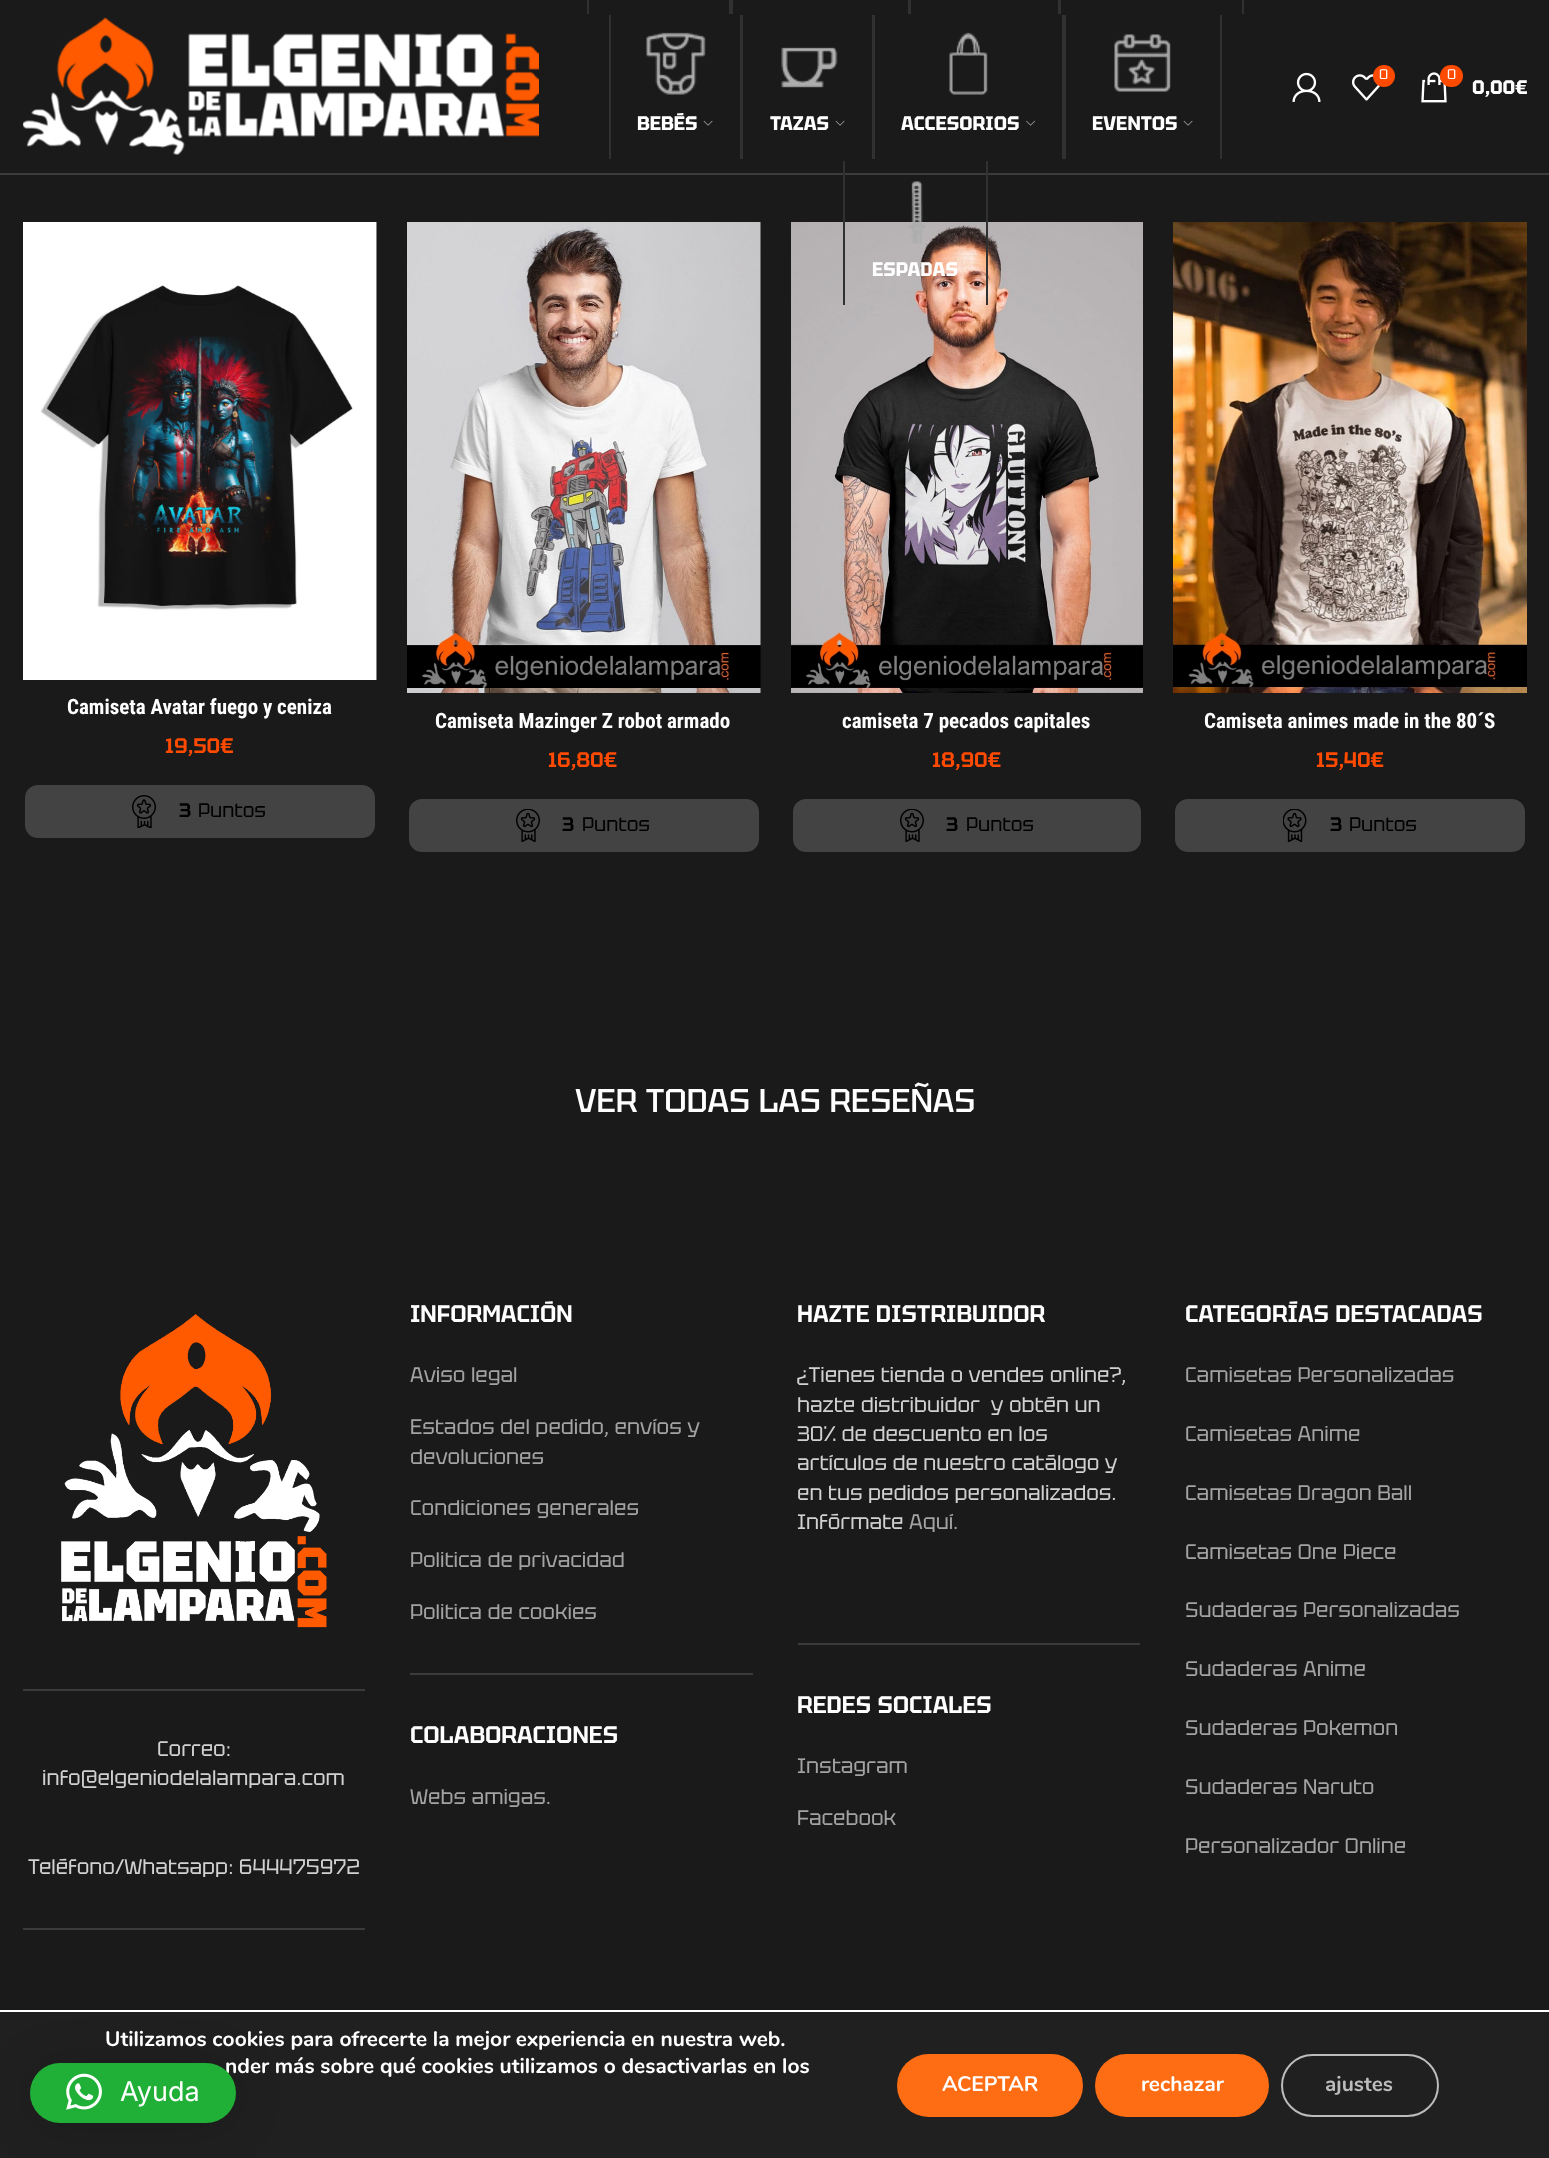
<!DOCTYPE html>
<meta charset="utf-8">
<style>body { margin: 0 } canvas { display: block }</style>
<canvas id="canvas" width="1549" height="2158"></canvas>
<img id="img1" src="img_01.png" hidden>
<img id="img2" src="img_02.png" hidden>
<img id="img3" src="img_03.png" hidden>
<img id="img4" src="img_04.png" hidden>
<img id="img5" src="img_05.png" hidden>
<img id="img6" src="img_06.png" hidden>
<img id="img7" src="img_07.png" hidden>
<img id="img8" src="img_08.png" hidden>
<img id="img9" src="img_09.png" hidden>
<img id="img10" src="img_10.png" hidden>
<img id="img11" src="img_16.png" hidden>
<img id="img12" src="img_11.png" hidden>
<img id="img13" src="img_12.png" hidden>
<img id="img14" src="img_13.png" hidden>
<img id="img15" src="img_14.png" hidden>
<img id="img16" src="img_15.png" hidden>
<img id="img17" src="img_17.png" hidden>
<img id="img18" src="img_18.png" hidden>
<img id="img19" src="img_19.png" hidden>
<img id="img20" src="img_20.png" hidden>
<script>
window.onload = function () {
	const canvas = document.getElementById("canvas");
	const ctx = canvas.getContext("2d");
	ctx.miterLimit = 4;
	ctx.fontKerning = "normal";
	function txt(s, x, y) {
		ctx.fillText(s, x, y);
	}
	function fill(x, y, w, h) {
		ctx.fillRect(x, y, w, h);
	}
	function round(x, y, w, h, r) {
		ctx.beginPath();
		ctx.roundRect(x, y, w, h, r);
		ctx.fill();
	}
	function img(id, x, y, w, h) {
		ctx.drawImage(document.getElementById(id), x, y, w, h);
	}

	ctx.fillStyle = "#1A1A1A";
	fill(0, 0, 1549, 2158);
	ctx.fillStyle = "rgba(255, 255, 255, 0.15)";
	fill(0, 173, 1549, 2);
	img("img1", 23, 17, 516, 138);
	img("img2", 1292, 72, 29, 30);
	img("img3", 1352, 74, 28, 27);
	ctx.fillStyle = "#FF4A00";
	ctx.beginPath();
	ctx.arc(1384, 76, 11, 0, Math.PI * 2);
	ctx.fill();
	img("img4", 1421, 72, 26, 31);
	round(1440, 65, 23, 22, 11);
	ctx.fillStyle = "#313131";
	fill(729, 0, 4, 14);
	fill(587, 0, 2, 14);
	fill(908, 0, 3, 14);
	fill(1058, 0, 3, 14);
	fill(1242, 0, 2, 14);
	img("img5", 646, 32, 60, 63);
	fill(740, 15, 3, 144);
	fill(609, 15, 2, 144);
	img("img6", 703, 120, 10, 6);
	img("img7", 781, 47, 57, 41);
	fill(872, 15, 3, 144);
	img("img6", 835, 120, 10, 6);
	img("img8", 949, 32, 39, 63);
	fill(1062, 15, 4, 144);
	img("img9", 1026, 120, 9, 6);
	img("img10", 1114, 34, 57, 58);
	fill(1220, 15, 2, 144);
	img("img6", 1183, 120, 10, 6);
	img("img11", 791, 222, 352, 471);
	img("img12", 908, 181, 18, 63);
	fill(986, 161, 2, 144);
	fill(843, 161, 2, 144);
	img("img13", 23, 222, 354, 458);
	ctx.fillStyle = "#434343";
	ctx.beginPath();
	ctx.roundRect(24, 784, 352, 55, 14);
	ctx.fill();
	ctx.strokeStyle = "#1A1A1A";
	ctx.lineWidth = 2;
	ctx.stroke();
	img("img14", 132, 795, 24, 33);
	img("img15", 407, 222, 354, 471);
	ctx.beginPath();
	ctx.roundRect(408, 798, 352, 55, 14);
	ctx.fill();
	ctx.stroke();
	img("img16", 516, 809, 24, 33);
	ctx.beginPath();
	ctx.roundRect(792, 798, 350, 55, 14);
	ctx.fill();
	ctx.stroke();
	img("img16", 900, 809, 24, 33);
	img("img17", 1173, 222, 354, 471);
	ctx.beginPath();
	ctx.roundRect(1174, 798, 352, 55, 14);
	ctx.fill();
	ctx.stroke();
	img("img18", 1283, 809, 24, 33);
	ctx.fillStyle = "#3C3B3B";
	fill(23, 1689, 342, 2);
	img("img19", 61, 1314, 266, 314);
	fill(23, 1928, 342, 2);
	fill(410, 1673, 343, 2);
	fill(798, 1643, 342, 2);
	ctx.fillStyle = "#202020";
	fill(0, 2012, 1549, 146);
	ctx.fillStyle = "#FFFFFF";
	fill(0, 2010, 1549, 2);
	ctx.fillStyle = "#FE6C14";
	round(897, 2054, 186, 63, 31.5);
	round(1095, 2054, 174, 63, 31.5);
	ctx.beginPath();
	ctx.roundRect(1282, 2055, 156, 61, 30.5);
	ctx.strokeStyle = "#BCBCBC";
	ctx.stroke();
	ctx.fillStyle = "rgba(0, 0, 0, 0.16)";
	ctx.filter = "blur(24px)";
	ctx.beginPath();
	ctx.roundRect(30, 2066, 206, 60, 30);
	ctx.fill();
	ctx.filter = "none";
	ctx.font = "14px Tektur";
	ctx.fillStyle = "#FFFFFF";
	txt("0", 1379, 79);
	txt("0", 1447, 79);
	ctx.font = "bold 19.5px Tektur";
	txt("0,00€", 1472, 94);
	txt("BEBÉS", 637, 130);
	txt("TAZAS", 770, 130);
	txt("ACCESORIOS", 901, 130);
	txt("EVENTOS", 1092, 130);
	txt("ESPADAS", 872, 276);
	ctx.font = "bold 21px Roboto Condensed";
	txt("Camiseta Avatar fuego y ceniza", 67, 714);
	ctx.font = "600 21px Tektur";
	ctx.fillStyle = "#FF4A00";
	txt("19,50€", 165, 753);
	ctx.font = "600 19.5px Tektur";
	ctx.fillStyle = "#000000";
	txt("3", 179, 817);
	ctx.font = "19.5px Tektur";
	txt("Puntos", 198, 817);
	ctx.font = "bold 21px Roboto Condensed";
	ctx.fillStyle = "#FFFFFF";
	txt("Camiseta Mazinger Z robot armado", 435, 728);
	ctx.font = "600 21px Tektur";
	ctx.fillStyle = "#FF4A00";
	txt("16,80€", 548, 767);
	ctx.font = "600 19.5px Tektur";
	ctx.fillStyle = "#000000";
	txt("3", 562, 831);
	ctx.font = "19.5px Tektur";
	txt("Puntos", 582, 831);
	ctx.font = "bold 21px Roboto Condensed";
	ctx.fillStyle = "#FFFFFF";
	txt("camiseta 7 pecados capitales", 842, 728);
	ctx.font = "600 21px Tektur";
	ctx.fillStyle = "#FF4A00";
	txt("18,90€", 932, 767);
	ctx.font = "600 19.5px Tektur";
	ctx.fillStyle = "#000000";
	txt("3", 946, 831);
	ctx.font = "19.5px Tektur";
	txt("Puntos", 966, 831);
	ctx.font = "bold 21px Roboto Condensed";
	ctx.fillStyle = "#FFFFFF";
	txt("Camiseta animes made in the 80´S", 1204, 728);
	ctx.font = "600 21px Tektur";
	ctx.fillStyle = "#FF4A00";
	txt("15,40€", 1316, 767);
	ctx.font = "600 19.5px Tektur";
	ctx.fillStyle = "#000000";
	txt("3", 1330, 831);
	ctx.font = "19.5px Tektur";
	txt("Puntos", 1349, 831);
	ctx.font = "500 33px Tektur";
	ctx.fillStyle = "#FFFFFF";
	txt("VER TODAS LAS RESEÑAS", 575, 1112);
	ctx.font = "21px Tektur";
	ctx.fillStyle = "#D1D1D1";
	txt("Correo:", 157, 1756);
	txt("info@elgeniodelalampara.com", 42, 1785);
	txt("Teléfono/Whatsapp: 644475972", 28, 1874);
	ctx.font = "600 24px Tektur";
	ctx.fillStyle = "#FFFFFF";
	txt("INFORMACIÓN", 410, 1322);
	ctx.font = "21px Tektur";
	ctx.fillStyle = "#A3A3A3";
	txt("Aviso legal", 410, 1382);
	txt("Estados del pedido, envíos y", 410, 1434);
	txt("devoluciones", 410, 1464);
	txt("Condiciones generales", 410, 1515);
	txt("Politica de privacidad", 410, 1567);
	txt("Politica de cookies", 410, 1619);
	ctx.font = "600 24px Tektur";
	ctx.fillStyle = "#FFFFFF";
	txt("COLABORACIONES", 410, 1743);
	ctx.font = "21px Tektur";
	ctx.fillStyle = "#A3A3A3";
	txt("Webs amigas.", 410, 1804);
	ctx.font = "600 24px Tektur";
	ctx.fillStyle = "#FFFFFF";
	txt("HAZTE DISTRIBUIDOR", 797, 1322);
	ctx.font = "21px Tektur";
	ctx.fillStyle = "#D1D1D1";
	txt("¿Tienes tienda o vendes online?,", 797, 1382);
	txt("hazte distribuidor  y obtén un", 797, 1412);
	txt("30% de descuento en los", 797, 1441);
	txt("artículos de nuestro catálogo y", 797, 1470);
	txt("en tus pedidos personalizados.", 797, 1500);
	txt("Infórmate", 797, 1529);
	ctx.fillStyle = "#A3A3A3";
	txt("Aquí.", 909, 1529);
	ctx.font = "600 24px Tektur";
	ctx.fillStyle = "#FFFFFF";
	txt("REDES SOCIALES", 797, 1713);
	ctx.font = "21px Tektur";
	ctx.fillStyle = "#A3A3A3";
	txt("Instagram", 797, 1773);
	txt("Facebook", 797, 1825);
	ctx.font = "600 24px Tektur";
	ctx.fillStyle = "#FFFFFF";
	txt("CATEGORÍAS DESTACADAS", 1185, 1322);
	ctx.font = "21px Tektur";
	ctx.fillStyle = "#A3A3A3";
	txt("Camisetas Personalizadas", 1185, 1382);
	txt("Camisetas Anime", 1185, 1441);
	txt("Camisetas Dragon Ball", 1185, 1500);
	txt("Camisetas One Piece", 1185, 1559);
	txt("Sudaderas Personalizadas", 1185, 1617);
	txt("Sudaderas Anime", 1185, 1676);
	txt("Sudaderas Pokemon", 1185, 1735);
	txt("Sudaderas Naruto", 1185, 1794);
	txt("Personalizador Online", 1185, 1853);
	ctx.font = "bold 21px Nunito";
	ctx.fillStyle = "#FFFFFF";
	txt("Utilizamos cookies para ofrecerte la mejor experiencia en nuestra web.", 105, 2046);
	txt("nder más sobre qué cookies utilizamos o desactivarlas en los", 225, 2073);
	txt("ACEPTAR", 942, 2091);
	txt("rechazar", 1141, 2091);
	ctx.fillStyle = "#BCBCBC";
	txt("ajustes", 1325, 2091);
	ctx.fillStyle = "#20B037";
	round(30, 2063, 206, 60, 30);
	img("img20", 66, 2073, 36, 37);
	ctx.font = "27px Inter";
	ctx.fillStyle = "#FFFFFF";
	txt("Ayuda", 120, 2101);
};
</script>
